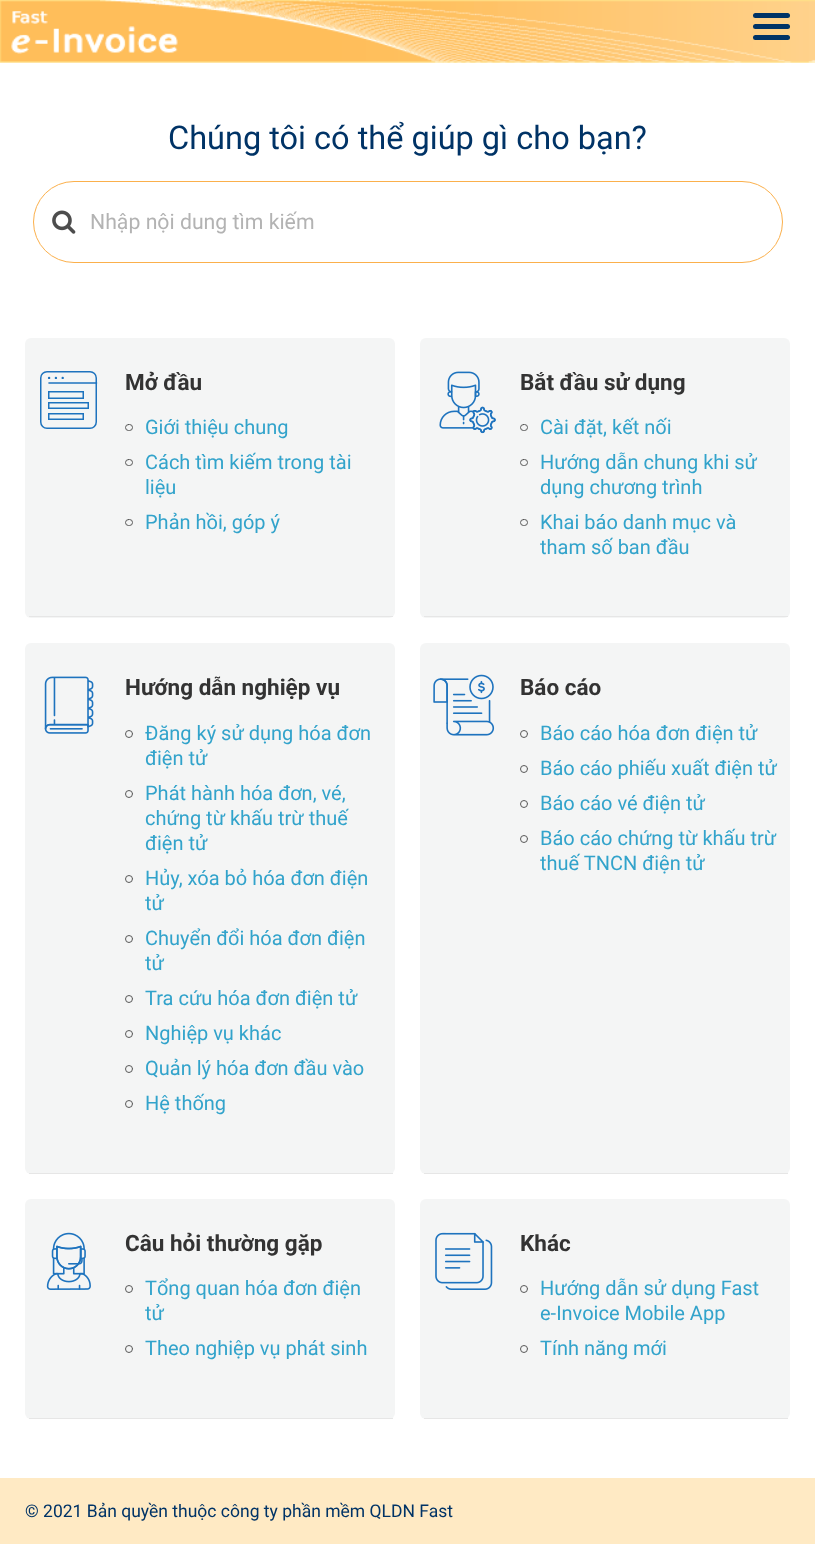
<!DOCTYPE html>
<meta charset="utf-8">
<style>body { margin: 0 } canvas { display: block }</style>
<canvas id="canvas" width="815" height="1544"></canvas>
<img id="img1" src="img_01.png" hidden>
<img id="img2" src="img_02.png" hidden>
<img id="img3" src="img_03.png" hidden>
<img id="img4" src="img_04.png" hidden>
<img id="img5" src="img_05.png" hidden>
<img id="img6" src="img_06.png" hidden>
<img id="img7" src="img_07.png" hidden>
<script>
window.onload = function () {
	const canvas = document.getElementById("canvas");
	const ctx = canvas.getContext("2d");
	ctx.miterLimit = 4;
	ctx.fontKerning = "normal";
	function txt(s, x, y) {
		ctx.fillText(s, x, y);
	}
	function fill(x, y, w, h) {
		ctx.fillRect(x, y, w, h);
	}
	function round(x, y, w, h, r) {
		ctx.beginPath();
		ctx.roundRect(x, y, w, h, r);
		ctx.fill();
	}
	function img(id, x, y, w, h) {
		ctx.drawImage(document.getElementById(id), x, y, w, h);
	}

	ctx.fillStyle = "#FFFFFF";
	fill(0, 0, 815, 1544);
	img("img1", 0, 0, 815, 63);
	ctx.fillStyle = "#003366";
	round(753, 24, 37, 5, 2.5);
	round(753, 13, 37, 5, 2.5);
	round(753, 35, 37, 5, 2.5);
	ctx.beginPath();
	ctx.roundRect(33.5, 181.5, 749, 81, 40.5);
	ctx.strokeStyle = "#FBB04C";
	ctx.stroke();
	img("img2", 52, 210, 24, 24);
	ctx.fillStyle = "#F4F5F5";
	round(25, 338, 370, 280, 6);
	ctx.fillStyle = "#E6E6E6";
	fill(29, 616, 364, 1);
	ctx.beginPath();
	ctx.roundRect(40.75, 371.75, 55.5, 56.5, 6.25);
	ctx.strokeStyle = "#1E73BE";
	ctx.lineWidth = 1.5;
	ctx.stroke();
	ctx.fillStyle = "#1E73BE";
	ctx.beginPath();
	ctx.arc(49.1, 377.9, 1.2, 0, Math.PI * 2);
	ctx.fill();
	ctx.beginPath();
	ctx.arc(55.9, 377.9, 1.2, 0, Math.PI * 2);
	ctx.fill();
	ctx.beginPath();
	ctx.arc(62.7, 377.9, 1.2, 0, Math.PI * 2);
	ctx.fill();
	ctx.beginPath();
	ctx.moveTo(49, 383);
	ctx.lineTo(96.5, 383);
	ctx.lineWidth = 1.6;
	ctx.lineCap = "round";
	ctx.lineJoin = "round";
	ctx.stroke();
	ctx.lineWidth = 1.5;
	ctx.lineJoin = "miter";
	ctx.strokeRect(48.75, 391.75, 34.5, 6.5);
	ctx.strokeRect(48.75, 402.75, 39.5, 5.5);
	ctx.strokeRect(48.75, 413.75, 34.5, 5.5);
	ctx.beginPath();
	ctx.roundRect(125.5, 424.5, 7, 6, 3);
	ctx.strokeStyle = "#595959";
	ctx.lineWidth = 1;
	ctx.stroke();
	ctx.beginPath();
	ctx.roundRect(125.5, 459.5, 7, 6, 3);
	ctx.stroke();
	ctx.beginPath();
	ctx.roundRect(125.5, 519.5, 7, 6, 3);
	ctx.stroke();
	ctx.fillStyle = "#F4F5F5";
	round(420, 338, 370, 280, 6);
	ctx.fillStyle = "#E6E6E6";
	fill(424, 616, 364, 1);
	img("img3", 439, 371, 57, 63);
	ctx.beginPath();
	ctx.roundRect(520.5, 424.5, 7, 6, 3);
	ctx.stroke();
	ctx.beginPath();
	ctx.roundRect(520.5, 459.5, 7, 6, 3);
	ctx.stroke();
	ctx.beginPath();
	ctx.roundRect(520.5, 519.5, 7, 6, 3);
	ctx.stroke();
	ctx.fillStyle = "#F4F5F5";
	round(25, 643, 370, 531, 6);
	ctx.fillStyle = "#E6E6E6";
	fill(29, 1173, 364, 1);
	img("img4", 44, 676, 50, 58);
	ctx.beginPath();
	ctx.arc(129, 734, 3.5, 0, Math.PI * 2);
	ctx.stroke();
	ctx.beginPath();
	ctx.arc(129, 794, 3.5, 0, Math.PI * 2);
	ctx.stroke();
	ctx.beginPath();
	ctx.arc(129, 879, 3.5, 0, Math.PI * 2);
	ctx.stroke();
	ctx.beginPath();
	ctx.arc(129, 939, 3.5, 0, Math.PI * 2);
	ctx.stroke();
	ctx.beginPath();
	ctx.arc(129, 999, 3.5, 0, Math.PI * 2);
	ctx.stroke();
	ctx.beginPath();
	ctx.arc(129, 1034, 3.5, 0, Math.PI * 2);
	ctx.stroke();
	ctx.beginPath();
	ctx.arc(129, 1069, 3.5, 0, Math.PI * 2);
	ctx.stroke();
	ctx.beginPath();
	ctx.arc(129, 1104, 3.5, 0, Math.PI * 2);
	ctx.stroke();
	ctx.fillStyle = "#F4F5F5";
	round(420, 643, 370, 531, 6);
	ctx.fillStyle = "#E6E6E6";
	fill(424, 1173, 364, 1);
	img("img5", 433, 674, 62, 62);
	ctx.beginPath();
	ctx.arc(524, 734, 3.5, 0, Math.PI * 2);
	ctx.stroke();
	ctx.beginPath();
	ctx.arc(524, 769, 3.5, 0, Math.PI * 2);
	ctx.stroke();
	ctx.beginPath();
	ctx.arc(524, 804, 3.5, 0, Math.PI * 2);
	ctx.stroke();
	ctx.beginPath();
	ctx.arc(524, 839, 3.5, 0, Math.PI * 2);
	ctx.stroke();
	ctx.fillStyle = "#F4F5F5";
	round(25, 1199, 370, 220, 6);
	ctx.fillStyle = "#E6E6E6";
	fill(29, 1418, 364, 1);
	img("img6", 46, 1232, 45, 58);
	ctx.beginPath();
	ctx.arc(129, 1289, 3.5, 0, Math.PI * 2);
	ctx.stroke();
	ctx.beginPath();
	ctx.arc(129, 1349, 3.5, 0, Math.PI * 2);
	ctx.stroke();
	ctx.fillStyle = "#F4F5F5";
	round(420, 1199, 370, 220, 6);
	ctx.fillStyle = "#E6E6E6";
	fill(424, 1418, 364, 1);
	img("img7", 435, 1232, 58, 58);
	ctx.beginPath();
	ctx.arc(524, 1289, 3.5, 0, Math.PI * 2);
	ctx.stroke();
	ctx.beginPath();
	ctx.arc(524, 1349, 3.5, 0, Math.PI * 2);
	ctx.stroke();
	ctx.fillStyle = "#FFEAC4";
	fill(0, 1478, 815, 66);
	ctx.font = "32.5px Roboto";
	ctx.fillStyle = "#003366";
	txt("Chúng tôi có thể giúp gì cho bạn?", 168, 149);
	ctx.font = "21.25px Roboto";
	ctx.fillStyle = "#B3B3B3";
	txt("Nhập nội dung tìm kiếm", 90, 229);
	ctx.font = "bold 22.5px Roboto";
	ctx.fillStyle = "#333333";
	txt("Mở đầu", 125, 390);
	ctx.font = "20px Roboto";
	ctx.fillStyle = "#32A3CB";
	txt("Giới thiệu chung", 145, 434);
	txt("Cách tìm kiếm trong tài", 145, 469);
	txt("liệu", 145, 494);
	txt("Phản hồi, góp ý", 145, 529);
	ctx.font = "bold 22.5px Roboto";
	ctx.fillStyle = "#333333";
	txt("Bắt đầu sử dụng", 520, 390);
	ctx.font = "20px Roboto";
	ctx.fillStyle = "#32A3CB";
	txt("Cài đặt, kết nối", 540, 434);
	txt("Hướng dẫn chung khi sử", 540, 469);
	txt("dụng chương trình", 540, 494);
	txt("Khai báo danh mục và", 540, 529);
	txt("tham số ban đầu", 540, 554);
	ctx.font = "bold 22.5px Roboto";
	ctx.fillStyle = "#333333";
	txt("Hướng dẫn nghiệp vụ", 125, 695);
	ctx.font = "20px Roboto";
	ctx.fillStyle = "#32A3CB";
	txt("Đăng ký sử dụng hóa đơn", 145, 740);
	txt("điện tử", 145, 765);
	txt("Phát hành hóa đơn, vé,", 145, 800);
	txt("chứng từ khấu trừ thuế", 145, 825);
	txt("điện tử", 145, 850);
	txt("Hủy, xóa bỏ hóa đơn điện", 145, 885);
	txt("tử", 145, 910);
	txt("Chuyển đổi hóa đơn điện", 145, 945);
	txt("tử", 145, 970);
	txt("Tra cứu hóa đơn điện tử", 145, 1005);
	txt("Nghiệp vụ khác", 145, 1040);
	txt("Quản lý hóa đơn đầu vào", 145, 1075);
	txt("Hệ thống", 145, 1110);
	ctx.font = "bold 22.5px Roboto";
	ctx.fillStyle = "#333333";
	txt("Báo cáo", 520, 695);
	ctx.font = "20px Roboto";
	ctx.fillStyle = "#32A3CB";
	txt("Báo cáo hóa đơn điện tử", 540, 740);
	txt("Báo cáo phiếu xuất điện tử", 540, 775);
	txt("Báo cáo vé điện tử", 540, 810);
	txt("Báo cáo chứng từ khấu trừ", 540, 845);
	txt("thuế TNCN điện tử", 540, 870);
	ctx.font = "bold 22.5px Roboto";
	ctx.fillStyle = "#333333";
	txt("Câu hỏi thường gặp", 125, 1251);
	ctx.font = "20px Roboto";
	ctx.fillStyle = "#32A3CB";
	txt("Tổng quan hóa đơn điện", 145, 1295);
	txt("tử", 145, 1320);
	txt("Theo nghiệp vụ phát sinh", 145, 1355);
	ctx.font = "bold 22.5px Roboto";
	ctx.fillStyle = "#333333";
	txt("Khác", 520, 1251);
	ctx.font = "20px Roboto";
	ctx.fillStyle = "#32A3CB";
	txt("Hướng dẫn sử dụng Fast", 540, 1295);
	txt("e-Invoice Mobile App", 540, 1320);
	txt("Tính năng mới", 540, 1355);
	ctx.font = "17.5px Roboto";
	ctx.fillStyle = "#003366";
	txt("© 2021 Bản quyền thuộc công ty phần mềm QLDN Fast", 25, 1517);
};
</script>
